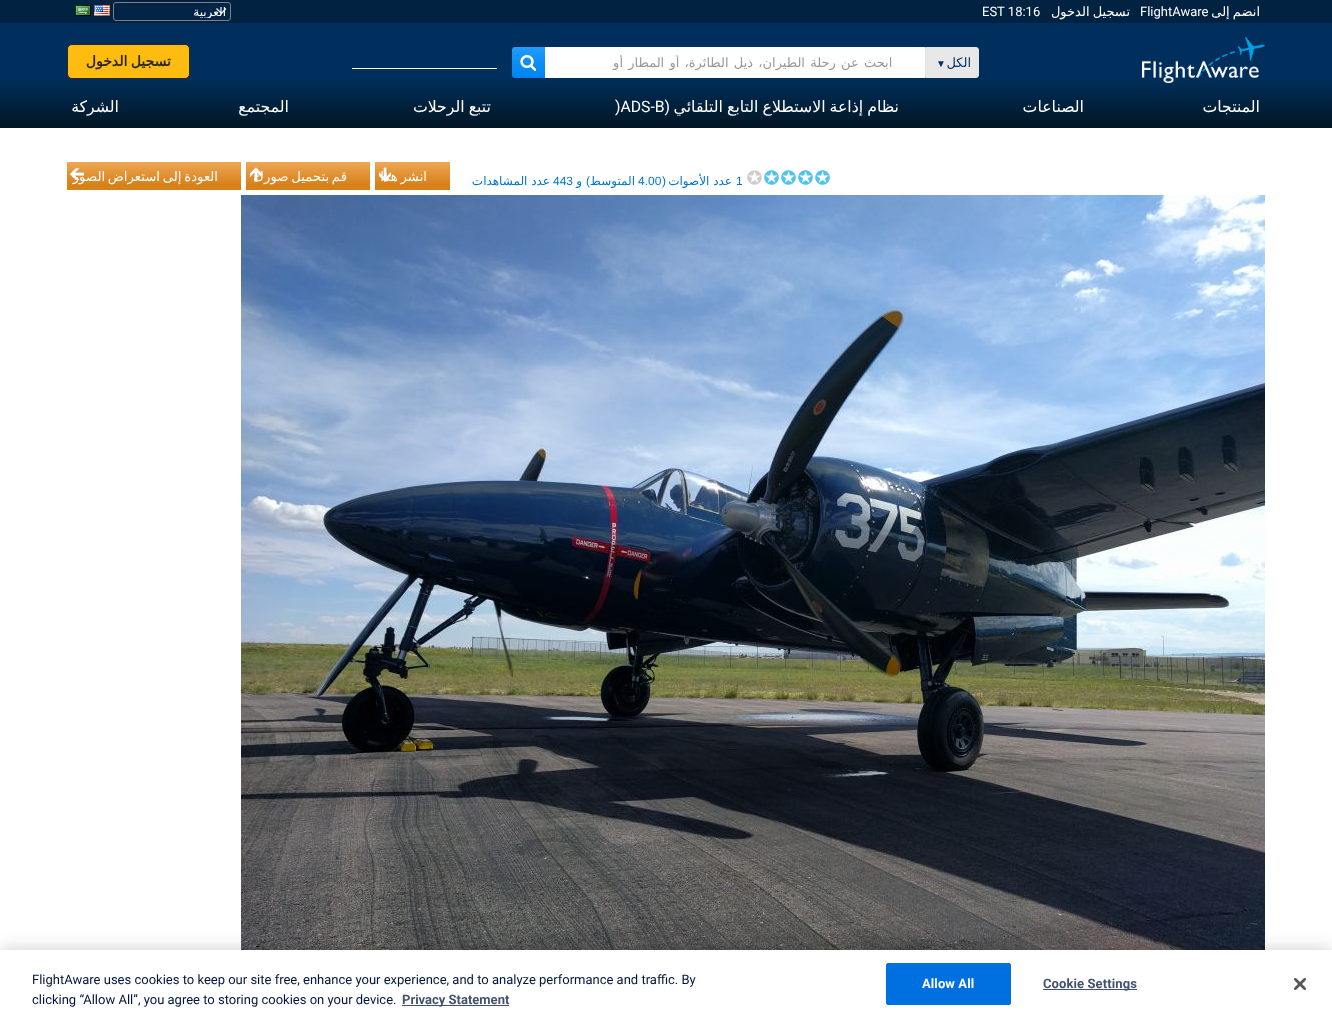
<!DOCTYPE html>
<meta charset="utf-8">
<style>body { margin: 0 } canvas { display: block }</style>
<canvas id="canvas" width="1332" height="1021"></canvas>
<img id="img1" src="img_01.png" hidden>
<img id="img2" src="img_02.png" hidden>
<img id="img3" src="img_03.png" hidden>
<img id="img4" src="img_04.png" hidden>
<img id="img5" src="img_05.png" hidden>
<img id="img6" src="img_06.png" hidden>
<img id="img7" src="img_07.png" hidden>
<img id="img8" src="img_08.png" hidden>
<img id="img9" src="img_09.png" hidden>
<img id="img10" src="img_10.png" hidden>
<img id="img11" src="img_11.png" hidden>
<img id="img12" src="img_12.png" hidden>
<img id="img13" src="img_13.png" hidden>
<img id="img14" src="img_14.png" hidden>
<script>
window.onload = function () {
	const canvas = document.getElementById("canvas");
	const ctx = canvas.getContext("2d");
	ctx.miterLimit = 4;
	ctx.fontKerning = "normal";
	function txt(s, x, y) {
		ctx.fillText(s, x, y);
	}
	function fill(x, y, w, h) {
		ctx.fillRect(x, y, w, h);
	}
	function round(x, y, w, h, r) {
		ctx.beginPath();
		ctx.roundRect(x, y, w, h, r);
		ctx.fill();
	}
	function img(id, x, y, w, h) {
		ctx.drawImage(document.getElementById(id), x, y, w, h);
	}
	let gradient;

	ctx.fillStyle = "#FFFFFF";
	fill(0, 0, 1332, 1021);
	ctx.fillStyle = "#888888";
	ctx.filter = "blur(0.5px)";
	ctx.beginPath();
	ctx.rect(1, 2, 1330, 126);
	ctx.fill();
	ctx.filter = "none";
	gradient = ctx.createLinearGradient(666, 0, 666, 128);
	gradient.addColorStop(0, "#002F5D");
	gradient.addColorStop(0.6, "#002F5D");
	gradient.addColorStop(1, "#021624");
	ctx.fillStyle = gradient;
	fill(0, 23, 1332, 105);
	ctx.fillStyle = "#022241";
	fill(0, 0, 1332, 23);
	img("img1", 75, 5, 16, 11);
	img("img2", 94, 5, 16, 11);
	ctx.fillStyle = "#022547";
	round(113, 2, 118, 19, 3);
	ctx.beginPath();
	ctx.moveTo(216.5, 8.5);
	ctx.lineTo(221.5, 13.5);
	ctx.lineTo(226, 8.5);
	ctx.strokeStyle = "#FFFFFF";
	ctx.lineWidth = 1.2;
	ctx.stroke();
	ctx.beginPath();
	ctx.roundRect(113.5, 2.5, 117, 18, 2.5);
	ctx.strokeStyle = "#808080";
	ctx.lineWidth = 1;
	ctx.stroke();
	ctx.fillStyle = "#FEBC11";
	ctx.beginPath();
	ctx.roundRect(67.5, 44.5, 122, 34, 4.5);
	ctx.fill();
	ctx.strokeStyle = "#272727";
	ctx.stroke();
	ctx.fillStyle = "#FFFFFF";
	fill(352, 68, 145, 1);
	gradient = ctx.createLinearGradient(529, 78, 529, 47);
	gradient.addColorStop(0, "#0084F0");
	gradient.addColorStop(0.66, "#1291F8");
	gradient.addColorStop(1, "#249DFF");
	ctx.fillStyle = gradient;
	ctx.beginPath();
	ctx.roundRect(512, 47, 33, 31, [3, 0, 0, 3]);
	ctx.fill();
	img("img3", 520, 55, 16, 16);
	ctx.fillStyle = "#FFFFFF";
	fill(545, 47, 380, 31);
	ctx.fillStyle = "#E7E7E7";
	ctx.beginPath();
	ctx.roundRect(925.5, 47.5, 53, 30, [0, 2.5, 2.5, 0]);
	ctx.fill();
	ctx.strokeStyle = "#E7E7E7";
	ctx.stroke();
	img("img4", 1142, 37, 123, 46);
	ctx.fillStyle = "#EDA653";
	fill(67, 162, 174, 2);
	img("img5", 67, 164, 174, 26);
	img("img6", 70, 168, 14, 13);
	fill(246, 162, 124, 2);
	img("img7", 246, 164, 124, 26);
	img("img8", 249, 167, 13, 15);
	fill(375, 162, 75, 2);
	img("img9", 375, 164, 75, 26);
	img("img10", 378, 167, 13, 15);
	img("img11", 747, 170, 15, 15);
	img("img12", 764, 170, 15, 15);
	img("img12", 781, 170, 15, 15);
	img("img12", 798, 170, 15, 15);
	img("img12", 815, 170, 15, 15);
	img("img13", 241, 195, 1024, 755);
	ctx.fillStyle = "rgba(0, 0, 0, 0.2)";
	ctx.filter = "blur(9px)";
	ctx.beginPath();
	ctx.rect(0, 950, 1332, 71);
	ctx.fill();
	ctx.filter = "none";
	ctx.fillStyle = "#FFFFFF";
	fill(0, 950, 1332, 71);
	ctx.fillStyle = "#42526F";
	fill(402, 1005, 107, 1);
	ctx.fillStyle = "#0070E0";
	ctx.beginPath();
	ctx.roundRect(886.5, 963.5, 124, 41, 1.5);
	ctx.fill();
	ctx.strokeStyle = "#0070E0";
	ctx.stroke();
	ctx.fillStyle = "#42526F";
	fill(1043, 989, 94, 1);
	img("img14", 1294, 978, 12, 12);
	ctx.save();
	ctx.beginPath();
	ctx.rect(118, 5, 108, 13);
	ctx.clip();
	ctx.direction = "rtl";
	ctx.font = "12px DejaVu Sans";
	ctx.fillStyle = "#FFFFFF";
	txt("العربية", 226, 16);
	ctx.restore();
	ctx.font = "13px Roboto";
	ctx.fillStyle = "#FFFFFF";
	txt("EST 18:16", 982, 16);
	ctx.wordSpacing = "-1px";
	ctx.direction = "rtl";
	ctx.font = "13px DejaVu Sans";
	txt("تسجيل الدخول", 1130, 16);
	ctx.wordSpacing = "0px";
	ctx.direction = "ltr";
	ctx.font = "13px Roboto";
	txt("FlightAware", 1140, 16);
	ctx.wordSpacing = "-1px";
	ctx.direction = "rtl";
	ctx.font = "13px DejaVu Sans";
	txt("انضم إلى", 1260, 16);
	ctx.font = "bold 14px DejaVu Sans";
	ctx.fillStyle = "#272727";
	txt("تسجيل الدخول", 171, 66);
	ctx.save();
	ctx.beginPath();
	ctx.rect(555, 55, 365, 15);
	ctx.clip();
	ctx.wordSpacing = "1.1px";
	ctx.font = "13px DejaVu Sans";
	ctx.fillStyle = "#999999";
	txt("   ابحث عن رحلة الطيران، ذيل الطائرة، أو المطار أو", 908, 67);
	ctx.restore();
	ctx.wordSpacing = "0px";
	ctx.direction = "ltr";
	ctx.font = "10px Liberation Sans";
	ctx.fillStyle = "#002F5D";
	txt("▼", 936, 67);
	ctx.direction = "rtl";
	ctx.font = "13px DejaVu Sans";
	txt("الكل", 971, 67);
	ctx.font = "15.75px DejaVu Sans";
	ctx.fillStyle = "#FFFFFF";
	txt("الشركة", 119, 112);
	txt("المجتمع", 289, 112);
	ctx.wordSpacing = "-1px";
	txt("تتبع الرحلات", 491, 112);
	ctx.wordSpacing = "0px";
	ctx.direction = "ltr";
	ctx.font = "15.75px Roboto";
	txt(")ADS-B", 615, 112);
	ctx.direction = "rtl";
	txt("(", 670, 112);
	ctx.wordSpacing = "-1px";
	ctx.font = "15.75px DejaVu Sans";
	txt("نظام إذاعة الاستطلاع التابع التلقائي", 899, 112);
	ctx.wordSpacing = "0px";
	txt("الصناعات", 1084, 112);
	txt("المنتجات", 1260, 112);
	ctx.wordSpacing = "-1.5px";
	ctx.font = "13.25px DejaVu Sans";
	txt("العودة إلى استعراض الصور", 218, 181);
	txt("قم بتحميل صورك", 347, 181);
	txt("انشر هذا", 427, 181);
	ctx.wordSpacing = "0px";
	ctx.font = "12px DejaVu Sans";
	ctx.fillStyle = "#0077CC";
	txt("عدد المشاهدات", 550, 185);
	ctx.direction = "ltr";
	ctx.font = "12px Liberation Sans";
	txt("443", 553, 185);
	ctx.direction = "rtl";
	ctx.font = "12px DejaVu Sans";
	txt("و", 582, 185);
	ctx.font = "12px Liberation Sans";
	txt(")", 590, 185);
	ctx.font = "12px DejaVu Sans";
	txt("المتوسط", 635, 185);
	ctx.direction = "ltr";
	ctx.font = "12px Liberation Sans";
	txt("4.00", 638, 185);
	ctx.direction = "rtl";
	txt("(", 666, 185);
	ctx.font = "12px DejaVu Sans";
	txt("عدد الأصوات", 732, 185);
	ctx.direction = "ltr";
	ctx.font = "12px Liberation Sans";
	txt("1", 736, 185);
	ctx.font = "13px Roboto";
	ctx.fillStyle = "#00153D";
	txt("FlightAware uses cookies to keep our site free, enhance your experience, and to analyze performance and traffic. By", 32, 984);
	txt("clicking “Allow All”, you agree to storing cookies on your device.", 32, 1004);
	ctx.font = "bold 13px Roboto";
	ctx.fillStyle = "#42526F";
	txt("Privacy Statement", 402, 1004);
	ctx.letterSpacing = "0.1px";
	ctx.fillStyle = "#FFFFFF";
	txt("Allow All", 922, 988);
	ctx.fillStyle = "#42526F";
	txt("Cookie Settings", 1043, 988);
};
</script>
